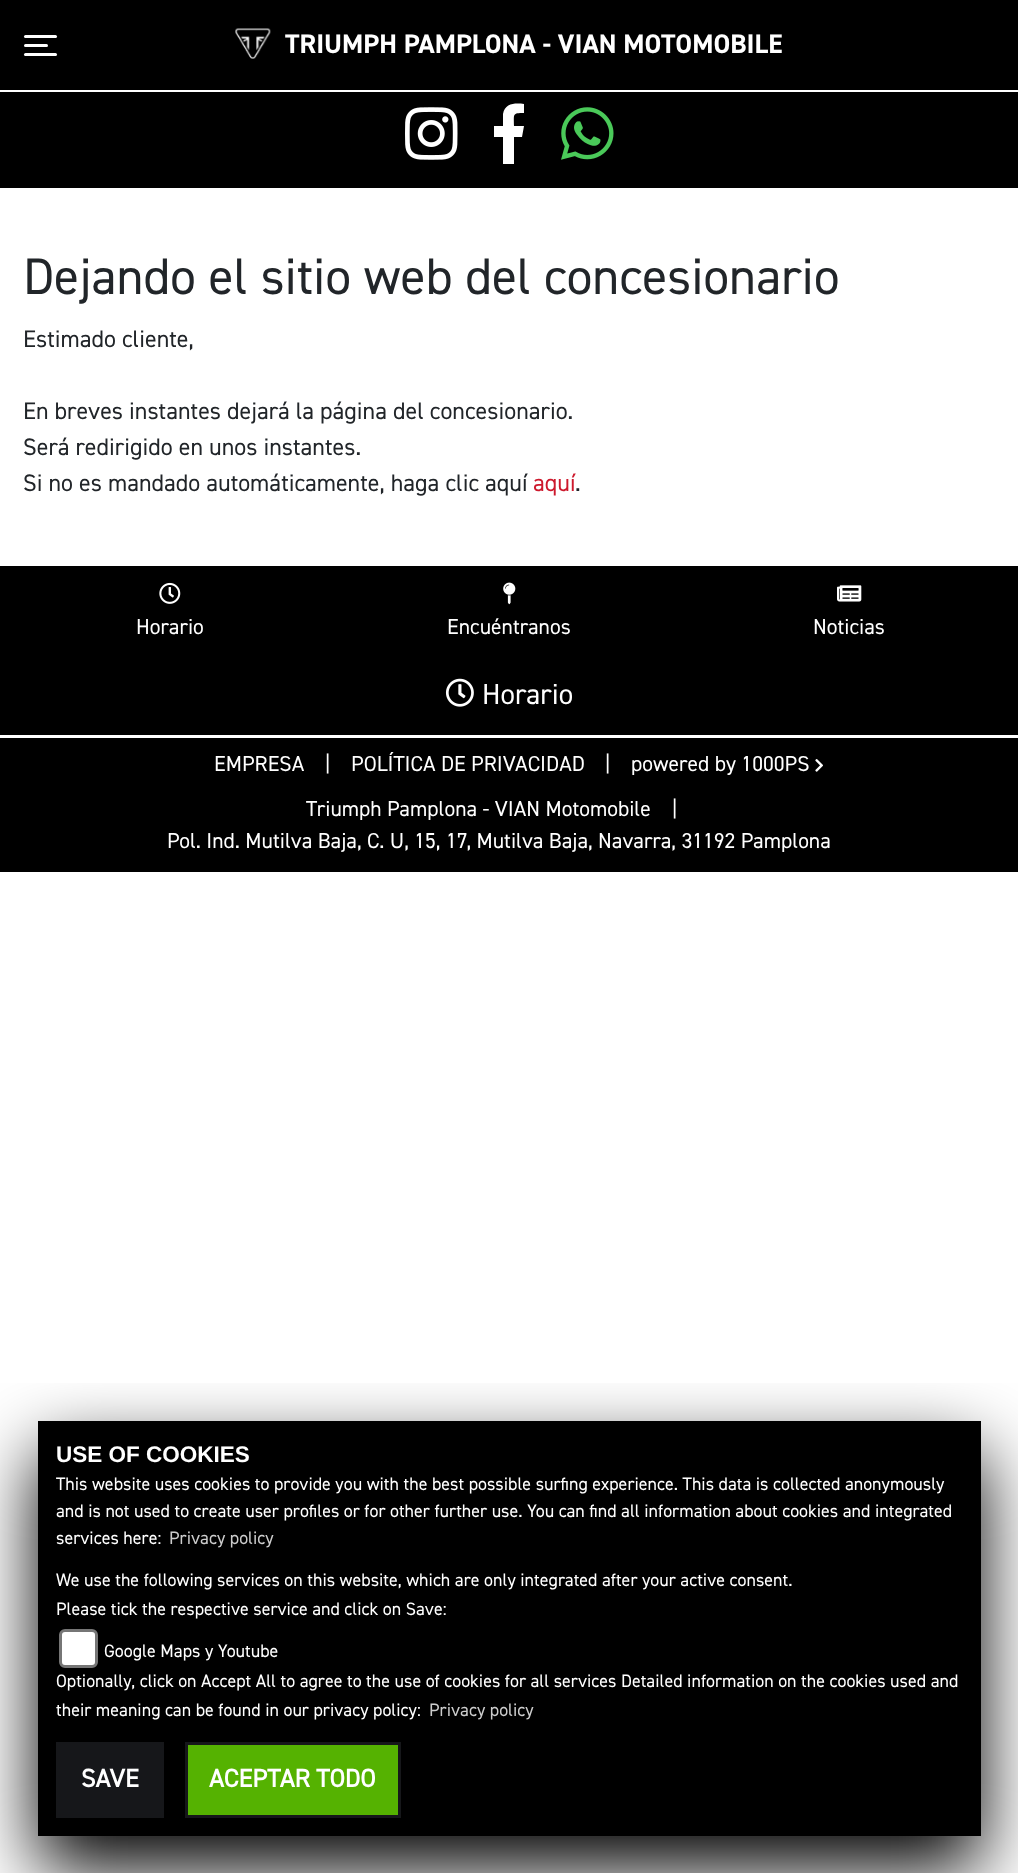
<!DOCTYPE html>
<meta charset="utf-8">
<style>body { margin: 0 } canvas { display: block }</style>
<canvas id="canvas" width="1018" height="1873"></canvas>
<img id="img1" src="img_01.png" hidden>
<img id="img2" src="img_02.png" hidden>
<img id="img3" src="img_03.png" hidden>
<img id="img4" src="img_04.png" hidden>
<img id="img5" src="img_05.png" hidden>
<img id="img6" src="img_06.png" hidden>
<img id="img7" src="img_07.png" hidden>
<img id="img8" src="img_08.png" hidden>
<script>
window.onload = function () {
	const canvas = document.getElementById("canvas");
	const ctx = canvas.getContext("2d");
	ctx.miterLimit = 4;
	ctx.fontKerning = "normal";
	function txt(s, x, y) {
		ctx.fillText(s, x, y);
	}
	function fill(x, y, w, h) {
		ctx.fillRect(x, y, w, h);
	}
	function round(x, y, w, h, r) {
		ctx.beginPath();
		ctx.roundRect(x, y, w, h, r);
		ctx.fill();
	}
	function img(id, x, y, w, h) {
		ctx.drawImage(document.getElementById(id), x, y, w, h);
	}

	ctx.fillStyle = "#FFFFFF";
	fill(0, 0, 1018, 1873);
	ctx.fillStyle = "#000000";
	fill(0, 0, 1018, 90);
	ctx.fillStyle = "#FFFFFF";
	round(24, 35, 33, 3, 1.5);
	round(24, 44, 24, 3, 1.5);
	round(24, 53, 33, 3, 1.5);
	img("img1", 235, 28, 36, 31);
	ctx.fillStyle = "#000000";
	fill(0, 92, 1018, 96);
	img("img2", 405, 107, 53, 53);
	ctx.fillStyle = "#FFFFFF";
	ctx.beginPath();
	ctx.moveTo(503, 164);
	ctx.lineTo(503, 137);
	ctx.lineTo(494, 137);
	ctx.lineTo(494, 126);
	ctx.lineTo(503, 126);
	ctx.lineTo(503, 114);
	ctx.bezierCurveTo(505, 103, 515, 103, 524, 104);
	ctx.lineTo(524, 113);
	ctx.bezierCurveTo(512, 113, 514, 114, 514, 126);
	ctx.lineTo(524, 126);
	ctx.lineTo(522, 137);
	ctx.lineTo(514, 137);
	ctx.lineTo(514, 164);
	ctx.closePath();
	ctx.fill();
	img("img3", 561, 107, 53, 53);
	ctx.fillStyle = "#000000";
	fill(0, 566, 1018, 306);
	ctx.fillStyle = "#FFFFFF";
	fill(0, 735, 1018, 3);
	img("img4", 159, 582, 22, 22);
	img("img5", 503, 582, 13, 23);
	img("img6", 837, 585, 25, 17);
	img("img7", 445, 678, 29, 29);
	img("img8", 815, 759, 8, 13);
	ctx.save();
	ctx.beginPath();
	ctx.rect(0, 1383, 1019, 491);
	ctx.clip();
	ctx.fillStyle = "#000000";
	ctx.filter = "blur(37.5px)";
	ctx.beginPath();
	ctx.rect(38, 1454, 943, 415);
	ctx.fill();
	ctx.filter = "none";
	ctx.restore();
	ctx.fillStyle = "#000000";
	fill(38, 1421, 943, 415);
	ctx.fillStyle = "#FFFFFF";
	ctx.beginPath();
	ctx.roundRect(60.5, 1630.5, 36, 36, 4.5);
	ctx.fill();
	ctx.strokeStyle = "#767676";
	ctx.lineWidth = 3;
	ctx.stroke();
	ctx.fillStyle = "#16171A";
	fill(56, 1742, 108, 76);
	ctx.fillStyle = "#55B201";
	ctx.beginPath();
	ctx.rect(186.5, 1743.5, 213, 73);
	ctx.fill();
	ctx.strokeStyle = "#16171A";
	ctx.stroke();
	ctx.font = "27px 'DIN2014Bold'";
	ctx.fillStyle = "#FFFFFF";
	txt("TRIUMPH PAMPLONA - VIAN MOTOMOBILE", 285, 53);
	ctx.font = "51.4px 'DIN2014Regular'";
	ctx.fillStyle = "#212529";
	txt("Dejando el sitio web del concesionario", 23, 294);
	ctx.font = "24px 'DIN2014Regular'";
	txt("Estimado cliente,", 23, 347);
	txt("En breves instantes dejará la página del concesionario.", 23, 419);
	txt("Será redirigido en unos instantes.", 23, 455);
	txt("Si no es mandado automáticamente, haga clic aquí", 23, 491);
	ctx.fillStyle = "#CD192D";
	txt("aquí", 533, 491);
	ctx.fillStyle = "#212529";
	txt(".", 575, 491);
	ctx.font = "21.6px 'DIN2014Regular'";
	ctx.fillStyle = "#FFFFFF";
	txt("Horario", 136, 634);
	txt("Encuéntranos", 447, 634);
	txt("Noticias", 813, 634);
	ctx.font = "29px 'DIN2014Regular'";
	txt("Horario", 482, 704);
	ctx.font = "21.6px 'DIN2014Regular'";
	txt("EMPRESA", 214, 771);
	txt("|", 325, 771);
	txt("POLÍTICA DE PRIVACIDAD", 351, 771);
	txt("|", 605, 771);
	txt("powered by 1000PS", 631, 771);
	txt("Triumph Pamplona - VIAN Motomobile", 306, 816);
	txt("|", 672, 816);
	txt("Pol. Ind. Mutilva Baja, C. U, 15, 17, Mutilva Baja, Navarra, 31192 Pamplona", 167, 848);
	ctx.font = "bold 22.5px Liberation Sans";
	txt("USE OF COOKIES", 56, 1462);
	ctx.font = "18px 'DIN2014Regular'";
	txt("This website uses cookies to provide you with the best possible surfing experience. This data is collected anonymously", 56, 1490);
	txt("and is not used to create user profiles or for other further use. You can find all information about cookies and integrated", 56, 1517);
	txt("services here:", 56, 1544);
	ctx.fillStyle = "#CCCCCC";
	txt("Privacy policy", 169, 1544);
	ctx.fillStyle = "#FFFFFF";
	txt("We use the following services on this website, which are only integrated after your active consent.", 56, 1586);
	txt("Please tick the respective service and click on Save:", 56, 1615);
	txt("Google Maps y Youtube", 104, 1657);
	txt("Optionally, click on Accept All to agree to the use of cookies for all services Detailed information on the cookies used and", 56, 1687);
	txt("their meaning can be found in our privacy policy:", 56, 1716);
	ctx.fillStyle = "#CCCCCC";
	txt("Privacy policy", 429, 1716);
	ctx.font = "bold 25.5px 'DIN2014Regular'";
	ctx.fillStyle = "#FFFFFF";
	txt("SAVE", 81, 1787);
	txt("ACEPTAR TODO", 209, 1787);
};
</script>
